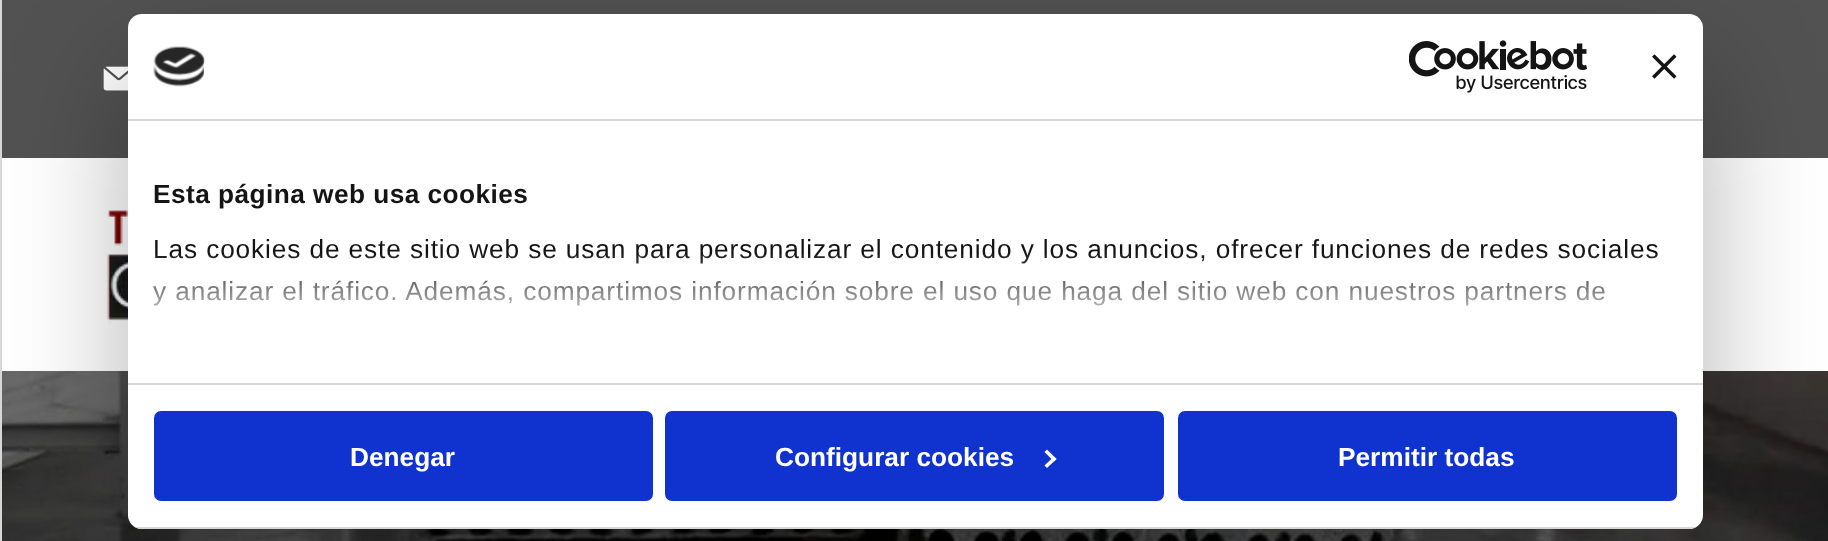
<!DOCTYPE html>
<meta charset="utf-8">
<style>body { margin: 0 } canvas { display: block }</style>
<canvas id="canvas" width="1828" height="541"></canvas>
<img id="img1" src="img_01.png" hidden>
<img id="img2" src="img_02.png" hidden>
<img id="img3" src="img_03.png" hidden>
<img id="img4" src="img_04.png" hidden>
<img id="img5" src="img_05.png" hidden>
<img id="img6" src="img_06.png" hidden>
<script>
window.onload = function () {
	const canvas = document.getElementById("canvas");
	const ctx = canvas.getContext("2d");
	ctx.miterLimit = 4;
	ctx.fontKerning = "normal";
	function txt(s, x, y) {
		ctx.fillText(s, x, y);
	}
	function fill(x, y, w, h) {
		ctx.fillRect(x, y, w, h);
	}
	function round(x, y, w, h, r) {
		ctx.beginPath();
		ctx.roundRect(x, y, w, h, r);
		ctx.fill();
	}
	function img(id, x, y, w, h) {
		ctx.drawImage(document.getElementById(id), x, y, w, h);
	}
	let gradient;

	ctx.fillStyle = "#FFFFFF";
	fill(0, 0, 1828, 541);
	ctx.fillStyle = "#D8D8D8";
	fill(0, 0, 2, 541);
	ctx.fillStyle = "#535252";
	fill(2, 0, 1826, 158);
	img("img1", 103, 66, 25, 25);
	img("img2", 106, 210, 22, 114);
	img("img3", 2, 371, 1826, 170);
	ctx.fillStyle = "rgba(0, 0, 0, 0.3)";
	ctx.filter = "blur(59.5px)";
	ctx.beginPath();
	ctx.roundRect(128, 70, 1575, 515, 14);
	ctx.fill();
	ctx.filter = "none";
	ctx.fillStyle = "#FFFFFF";
	round(128, 14, 1575, 515, 14);
	ctx.fillStyle = "#D6D6D6";
	fill(128, 119, 1575, 2);
	img("img4", 153, 46, 52, 41);
	img("img5", 1409, 40, 178, 53);
	img("img6", 1652, 54, 25, 25);
	fill(128, 383, 1575, 2);
	ctx.save();
	ctx.beginPath();
	ctx.roundRect(128, 14, 1575, 515, 14);
	ctx.clip();
	fill(128, 527, 1575, 2);
	ctx.restore();
	ctx.fillStyle = "#1032CF";
	ctx.beginPath();
	ctx.roundRect(156, 413, 495, 86, 5);
	ctx.fill();
	ctx.strokeStyle = "#1032CF";
	ctx.lineWidth = 4;
	ctx.stroke();
	ctx.beginPath();
	ctx.roundRect(667, 413, 495, 86, 5);
	ctx.fill();
	ctx.stroke();
	ctx.fillStyle = "#FFFFFF";
	ctx.beginPath();
	ctx.moveTo(1047, 449.5);
	ctx.lineTo(1056.5, 459);
	ctx.lineTo(1054, 461.5);
	ctx.lineTo(1044.5, 452);
	ctx.closePath();
	ctx.fill();
	ctx.beginPath();
	ctx.moveTo(1054, 456.5);
	ctx.lineTo(1056.5, 459);
	ctx.lineTo(1047, 468);
	ctx.lineTo(1044.5, 465.5);
	ctx.closePath();
	ctx.fill();
	ctx.fillStyle = "#1032CF";
	ctx.beginPath();
	ctx.roundRect(1180, 413, 495, 86, 5);
	ctx.fill();
	ctx.stroke();
	ctx.letterSpacing = "0.45px";
	ctx.font = "bold 26.25px Liberation Sans";
	ctx.fillStyle = "#141414";
	txt("Esta página web usa cookies", 153, 203);
	ctx.letterSpacing = "0.88px";
	ctx.font = "26.25px Liberation Sans";
	txt("Las cookies de este sitio web se usan para personalizar el contenido y los anuncios, ofrecer funciones de redes sociales", 153, 258);
	txt("y analizar el tráfico. Además, compartimos información sobre el uso que haga del sitio web con nuestros partners de", 153, 300);
	gradient = ctx.createLinearGradient(904, 383, 904, 252);
	gradient.addColorStop(0, "#FFFFFF");
	gradient.addColorStop(0.5, "rgba(255, 255, 255, 0.8)");
	gradient.addColorStop(1, "rgba(255, 255, 255, 0)");
	ctx.fillStyle = gradient;
	fill(153, 254, 1504, 52);
	ctx.letterSpacing = "0px";
	ctx.font = "bold 26.25px Liberation Sans";
	ctx.fillStyle = "#FFFFFF";
	txt("Denegar", 350, 466);
	txt("Configurar cookies", 775, 466);
	txt("Permitir todas", 1338, 466);
};
</script>
